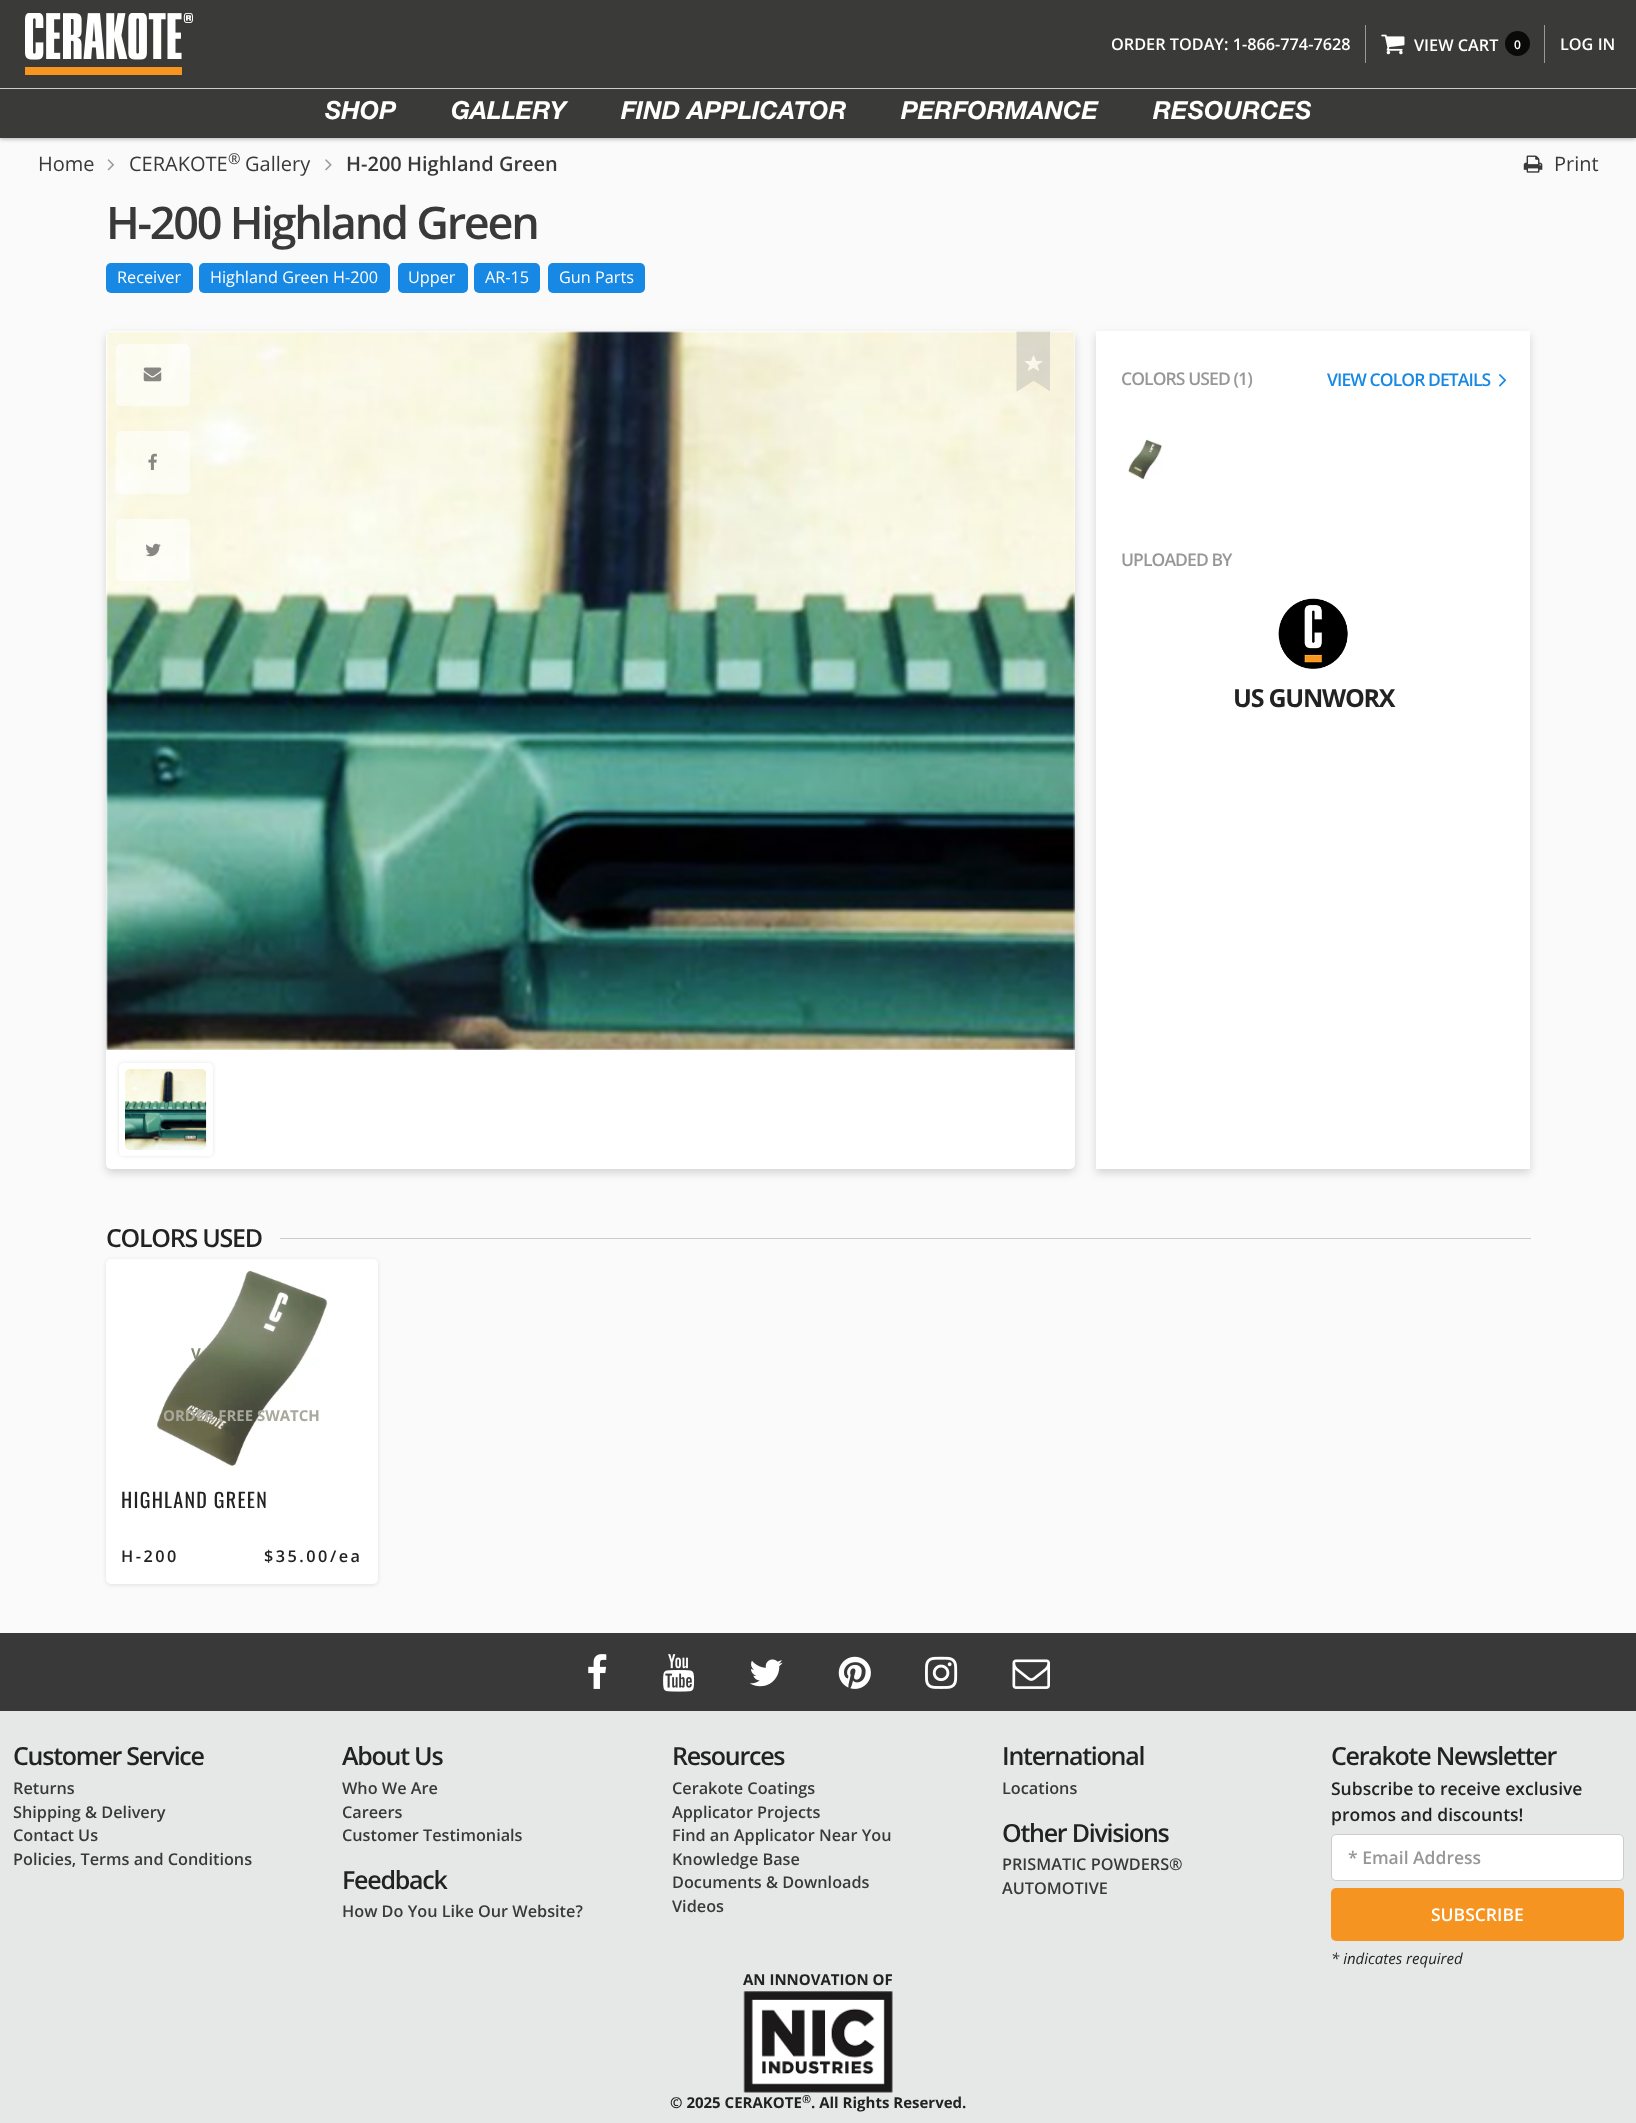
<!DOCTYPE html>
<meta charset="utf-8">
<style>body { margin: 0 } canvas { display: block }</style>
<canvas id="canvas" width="1636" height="2123"></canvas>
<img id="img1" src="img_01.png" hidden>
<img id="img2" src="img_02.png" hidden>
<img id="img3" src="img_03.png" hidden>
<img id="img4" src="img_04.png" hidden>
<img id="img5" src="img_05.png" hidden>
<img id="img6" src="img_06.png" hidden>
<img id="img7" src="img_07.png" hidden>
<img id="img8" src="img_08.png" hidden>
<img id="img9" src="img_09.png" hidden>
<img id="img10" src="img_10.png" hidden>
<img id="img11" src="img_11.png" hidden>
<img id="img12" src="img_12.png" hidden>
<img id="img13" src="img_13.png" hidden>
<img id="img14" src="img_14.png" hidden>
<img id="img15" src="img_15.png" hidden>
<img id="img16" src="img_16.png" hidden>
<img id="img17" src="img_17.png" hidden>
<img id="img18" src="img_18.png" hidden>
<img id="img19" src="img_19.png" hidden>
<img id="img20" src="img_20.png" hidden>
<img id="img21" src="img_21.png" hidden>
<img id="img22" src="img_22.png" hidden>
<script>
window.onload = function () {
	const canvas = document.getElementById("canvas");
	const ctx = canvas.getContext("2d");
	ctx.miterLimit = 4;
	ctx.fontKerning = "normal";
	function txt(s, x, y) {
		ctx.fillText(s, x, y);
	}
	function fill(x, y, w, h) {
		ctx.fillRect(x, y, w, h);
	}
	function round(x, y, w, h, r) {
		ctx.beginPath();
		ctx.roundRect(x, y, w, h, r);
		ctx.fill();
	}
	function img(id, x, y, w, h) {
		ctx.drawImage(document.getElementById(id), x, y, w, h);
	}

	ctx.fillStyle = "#FAFAFA";
	fill(0, 0, 1636, 2123);
	ctx.fillStyle = "rgba(0, 0, 0, 0.3)";
	ctx.filter = "blur(2px)";
	ctx.beginPath();
	ctx.rect(0, 1, 1636, 138);
	ctx.fill();
	ctx.filter = "none";
	ctx.fillStyle = "#3A3A39";
	fill(0, 0, 1636, 138);
	img("img1", 25, 13, 168, 62);
	ctx.fillStyle = "#999999";
	fill(1365, 25, 1, 38);
	img("img2", 1381, 34, 24, 21);
	ctx.fillStyle = "#0A0B09";
	ctx.beginPath();
	ctx.arc(1517.5, 43.5, 12.5, 0, Math.PI * 2);
	ctx.fill();
	ctx.fillStyle = "#999999";
	fill(1544, 25, 1, 38);
	ctx.fillStyle = "#CCCCCC";
	fill(0, 88, 1636, 1);
	img("img3", 107, 159, 7, 12);
	img("img4", 325, 159, 7, 12);
	img("img5", 1523, 155, 20, 18);
	ctx.fillStyle = "#1788E4";
	round(106, 263, 87, 30, 5);
	round(199, 263, 191, 30, 5);
	round(398, 263, 70, 30, 5);
	round(474, 263, 66, 30, 5);
	round(548, 263, 97, 30, 5);
	ctx.fillStyle = "rgba(0, 0, 0, 0.15)";
	ctx.filter = "blur(4px)";
	ctx.beginPath();
	ctx.roundRect(106, 335, 969, 838, 5);
	ctx.fill();
	ctx.filter = "none";
	ctx.fillStyle = "#FFFFFF";
	round(106, 331, 969, 838, 5);
	img("img6", 106, 331, 969, 719);
	ctx.fillStyle = "rgba(255, 255, 255, 0.6)";
	round(116, 344, 74, 62, 5);
	img("img7", 143, 367, 19, 15);
	round(116, 431, 74, 63, 5);
	img("img8", 148, 453, 9, 17);
	round(116, 519, 74, 62, 5);
	img("img9", 145, 543, 16, 14);
	img("img10", 1016, 331, 34, 61);
	ctx.save();
	ctx.beginPath();
	ctx.moveTo(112, 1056);
	ctx.lineTo(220, 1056);
	ctx.lineTo(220, 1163);
	ctx.lineTo(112, 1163);
	ctx.closePath();
	ctx.moveTo(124, 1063);
	ctx.lineTo(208, 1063);
	ctx.bezierCurveTo(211, 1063, 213, 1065, 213, 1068);
	ctx.lineTo(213, 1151);
	ctx.bezierCurveTo(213, 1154, 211, 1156, 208, 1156);
	ctx.lineTo(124, 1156);
	ctx.bezierCurveTo(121, 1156, 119, 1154, 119, 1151);
	ctx.lineTo(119, 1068);
	ctx.bezierCurveTo(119, 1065, 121, 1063, 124, 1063);
	ctx.closePath();
	ctx.clip("evenodd");
	ctx.fillStyle = "rgba(0, 0, 0, 0.1)";
	ctx.filter = "blur(2px)";
	ctx.beginPath();
	ctx.roundRect(119, 1063, 94, 93, 5);
	ctx.fill();
	ctx.filter = "none";
	ctx.restore();
	img("img11", 125, 1069, 82, 81);
	ctx.fillStyle = "rgba(0, 0, 0, 0.15)";
	ctx.filter = "blur(4px)";
	ctx.beginPath();
	ctx.rect(1096, 335, 434, 838);
	ctx.fill();
	ctx.filter = "none";
	ctx.fillStyle = "#FFFFFF";
	fill(1096, 331, 434, 838);
	img("img12", 1499, 374, 8, 13);
	img("img13", 1127, 439, 36, 41);
	img("img14", 1278, 598, 70, 71);
	ctx.fillStyle = "#CCCCCC";
	fill(280, 1238, 1251, 1);
	ctx.fillStyle = "rgba(0, 0, 0, 0.1)";
	ctx.filter = "blur(2px)";
	ctx.beginPath();
	ctx.roundRect(106, 1260, 272, 325, 5);
	ctx.fill();
	ctx.filter = "none";
	ctx.fillStyle = "#FFFFFF";
	round(106, 1259, 272, 325, 5);
	img("img15", 156, 1270, 173, 196);
	ctx.fillStyle = "#E6E8E8";
	fill(0, 1711, 1636, 412);
	ctx.fillStyle = "#393939";
	fill(0, 1633, 1636, 78);
	img("img16", 588, 1654, 19, 35);
	img("img17", 663, 1654, 32, 38);
	img("img18", 749, 1659, 34, 28);
	img("img19", 838, 1656, 33, 33);
	img("img20", 925, 1656, 33, 33);
	img("img21", 1012, 1659, 38, 30);
	ctx.fillStyle = "#FFFFFF";
	ctx.beginPath();
	ctx.roundRect(1331.5, 1834.5, 292, 46, 4.5);
	ctx.fill();
	ctx.strokeStyle = "#CCCCCC";
	ctx.stroke();
	ctx.fillStyle = "#F69422";
	round(1331, 1888, 293, 53, 5);
	img("img22", 743, 1991, 150, 102);
	ctx.font = "600 16.25px Open Sans";
	ctx.fillStyle = "#FFFFFF";
	txt("ORDER TODAY: 1-866-774-7628", 1111, 50);
	txt("VIEW CART", 1414, 51);
	ctx.font = "600 12px Open Sans";
	txt("0", 1514, 49);
	ctx.font = "600 16.25px Open Sans";
	txt("LOG IN", 1560, 50);
	ctx.font = "italic bold 25px Helvetica Neue";
	txt("SHOP", 325, 119);
	txt("GALLERY", 451, 119);
	txt("FIND APPLICATOR", 621, 119);
	txt("PERFORMANCE", 901, 119);
	txt("RESOURCES", 1153, 119);
	ctx.font = "20px Open Sans";
	ctx.fillStyle = "#393939";
	txt("Home", 38, 171);
	txt("CERAKOTE", 129, 171);
	ctx.font = "15px Open Sans";
	txt("®", 228, 164);
	ctx.font = "20px Open Sans";
	txt("Gallery", 245, 171);
	ctx.font = "600 20px Open Sans";
	txt("H-200 Highland Green", 346, 171);
	ctx.font = "20px Open Sans";
	txt("Print", 1554, 171);
	ctx.letterSpacing = "-2.25px";
	ctx.font = "600 45px Open Sans";
	txt("H-200 Highland Green", 106, 239);
	ctx.letterSpacing = "0px";
	ctx.font = "16.25px Open Sans";
	ctx.fillStyle = "#FFFFFF";
	txt("Receiver", 117, 283);
	txt("Highland Green H-200", 210, 283);
	txt("Upper", 408, 283);
	txt("AR-15", 485, 283);
	txt("Gun Parts", 559, 283);
	ctx.letterSpacing = "-0.9px";
	ctx.font = "600 17.5px Open Sans";
	ctx.fillStyle = "#979797";
	txt("COLORS USED (1)", 1121, 385);
	ctx.fillStyle = "#1788E4";
	txt("VIEW COLOR DETAILS", 1327, 386);
	ctx.fillStyle = "#979797";
	txt("UPLOADED BY", 1121, 566);
	ctx.letterSpacing = "-1.25px";
	ctx.font = "bold 25px Open Sans";
	ctx.fillStyle = "#222222";
	txt("US GUNWORX", 1233, 707);
	ctx.font = "600 25px Open Sans";
	txt("COLORS USED", 106, 1247);
	ctx.letterSpacing = "0px";
	ctx.font = "bold 15px Open Sans";
	ctx.fillStyle = "#7F8870";
	txt("V", 191, 1359);
	ctx.fillStyle = "#A8A89C";
	txt("ORDER FREE SWATCH", 163, 1421);
	ctx.letterSpacing = "1.25px";
	ctx.font = "20px Oswald";
	ctx.fillStyle = "#222222";
	txt("HIGHLAND GREEN", 121, 1508);
	ctx.letterSpacing = "2.5px";
	ctx.font = "600 16.25px Open Sans";
	txt("H-200", 121, 1562);
	txt("$35.00/ea", 264, 1562);
	ctx.letterSpacing = "-1.25px";
	ctx.font = "600 25px Open Sans";
	txt("Customer Service", 13, 1765);
	ctx.letterSpacing = "0px";
	ctx.font = "600 16.25px Open Sans";
	ctx.fillStyle = "#393939";
	txt("Returns", 13, 1794);
	txt("Shipping & Delivery", 13, 1818);
	txt("Contact Us", 13, 1841);
	txt("Policies, Terms and Conditions", 13, 1865);
	ctx.letterSpacing = "-1.25px";
	ctx.font = "600 25px Open Sans";
	ctx.fillStyle = "#222222";
	txt("About Us", 342, 1765);
	ctx.letterSpacing = "0px";
	ctx.font = "600 16.25px Open Sans";
	ctx.fillStyle = "#393939";
	txt("Who We Are", 342, 1794);
	txt("Careers", 342, 1818);
	txt("Customer Testimonials", 342, 1841);
	ctx.letterSpacing = "-1.25px";
	ctx.font = "600 25px Open Sans";
	ctx.fillStyle = "#222222";
	txt("Feedback", 342, 1889);
	ctx.letterSpacing = "0px";
	ctx.font = "600 16.25px Open Sans";
	ctx.fillStyle = "#393939";
	txt("How Do You Like Our Website?", 342, 1917);
	ctx.letterSpacing = "-1.25px";
	ctx.font = "600 25px Open Sans";
	ctx.fillStyle = "#222222";
	txt("Resources", 672, 1765);
	ctx.letterSpacing = "0px";
	ctx.font = "600 16.25px Open Sans";
	ctx.fillStyle = "#393939";
	txt("Cerakote Coatings", 672, 1794);
	txt("Applicator Projects", 672, 1818);
	txt("Find an Applicator Near You", 672, 1841);
	txt("Knowledge Base", 672, 1865);
	txt("Documents & Downloads", 672, 1888);
	txt("Videos", 672, 1912);
	ctx.letterSpacing = "-1.25px";
	ctx.font = "600 25px Open Sans";
	ctx.fillStyle = "#222222";
	txt("International", 1002, 1765);
	ctx.letterSpacing = "0px";
	ctx.font = "600 16.25px Open Sans";
	ctx.fillStyle = "#393939";
	txt("Locations", 1002, 1794);
	ctx.letterSpacing = "-1.25px";
	ctx.font = "600 25px Open Sans";
	ctx.fillStyle = "#222222";
	txt("Other Divisions", 1002, 1842);
	ctx.letterSpacing = "0px";
	ctx.font = "600 16.25px Open Sans";
	ctx.fillStyle = "#393939";
	txt("PRISMATIC POWDERS®", 1002, 1870);
	txt("AUTOMOTIVE", 1002, 1894);
	ctx.letterSpacing = "-1.25px";
	ctx.font = "600 25px Open Sans";
	ctx.fillStyle = "#222222";
	txt("Cerakote Newsletter", 1331, 1765);
	ctx.letterSpacing = "0px";
	ctx.font = "600 17.5px Open Sans";
	txt("Subscribe to receive exclusive", 1331, 1795);
	txt("promos and discounts!", 1331, 1821);
	ctx.fillStyle = "#979797";
	txt("* Email Address", 1348, 1864);
	ctx.fillStyle = "#FFFFFF";
	txt("SUBSCRIBE", 1431, 1921);
	ctx.font = "italic 15px Open Sans";
	ctx.fillStyle = "#222222";
	txt("* indicates required", 1331, 1964);
	ctx.font = "bold 15px Open Sans";
	txt("AN INNOVATION OF", 743, 1985);
	txt("© 2025 CERAKOTE", 670, 2108);
	ctx.font = "bold 11px Open Sans";
	txt("®", 802, 2103);
	ctx.font = "bold 15px Open Sans";
	txt(". All Rights Reserved.", 811, 2108);
};
</script>
